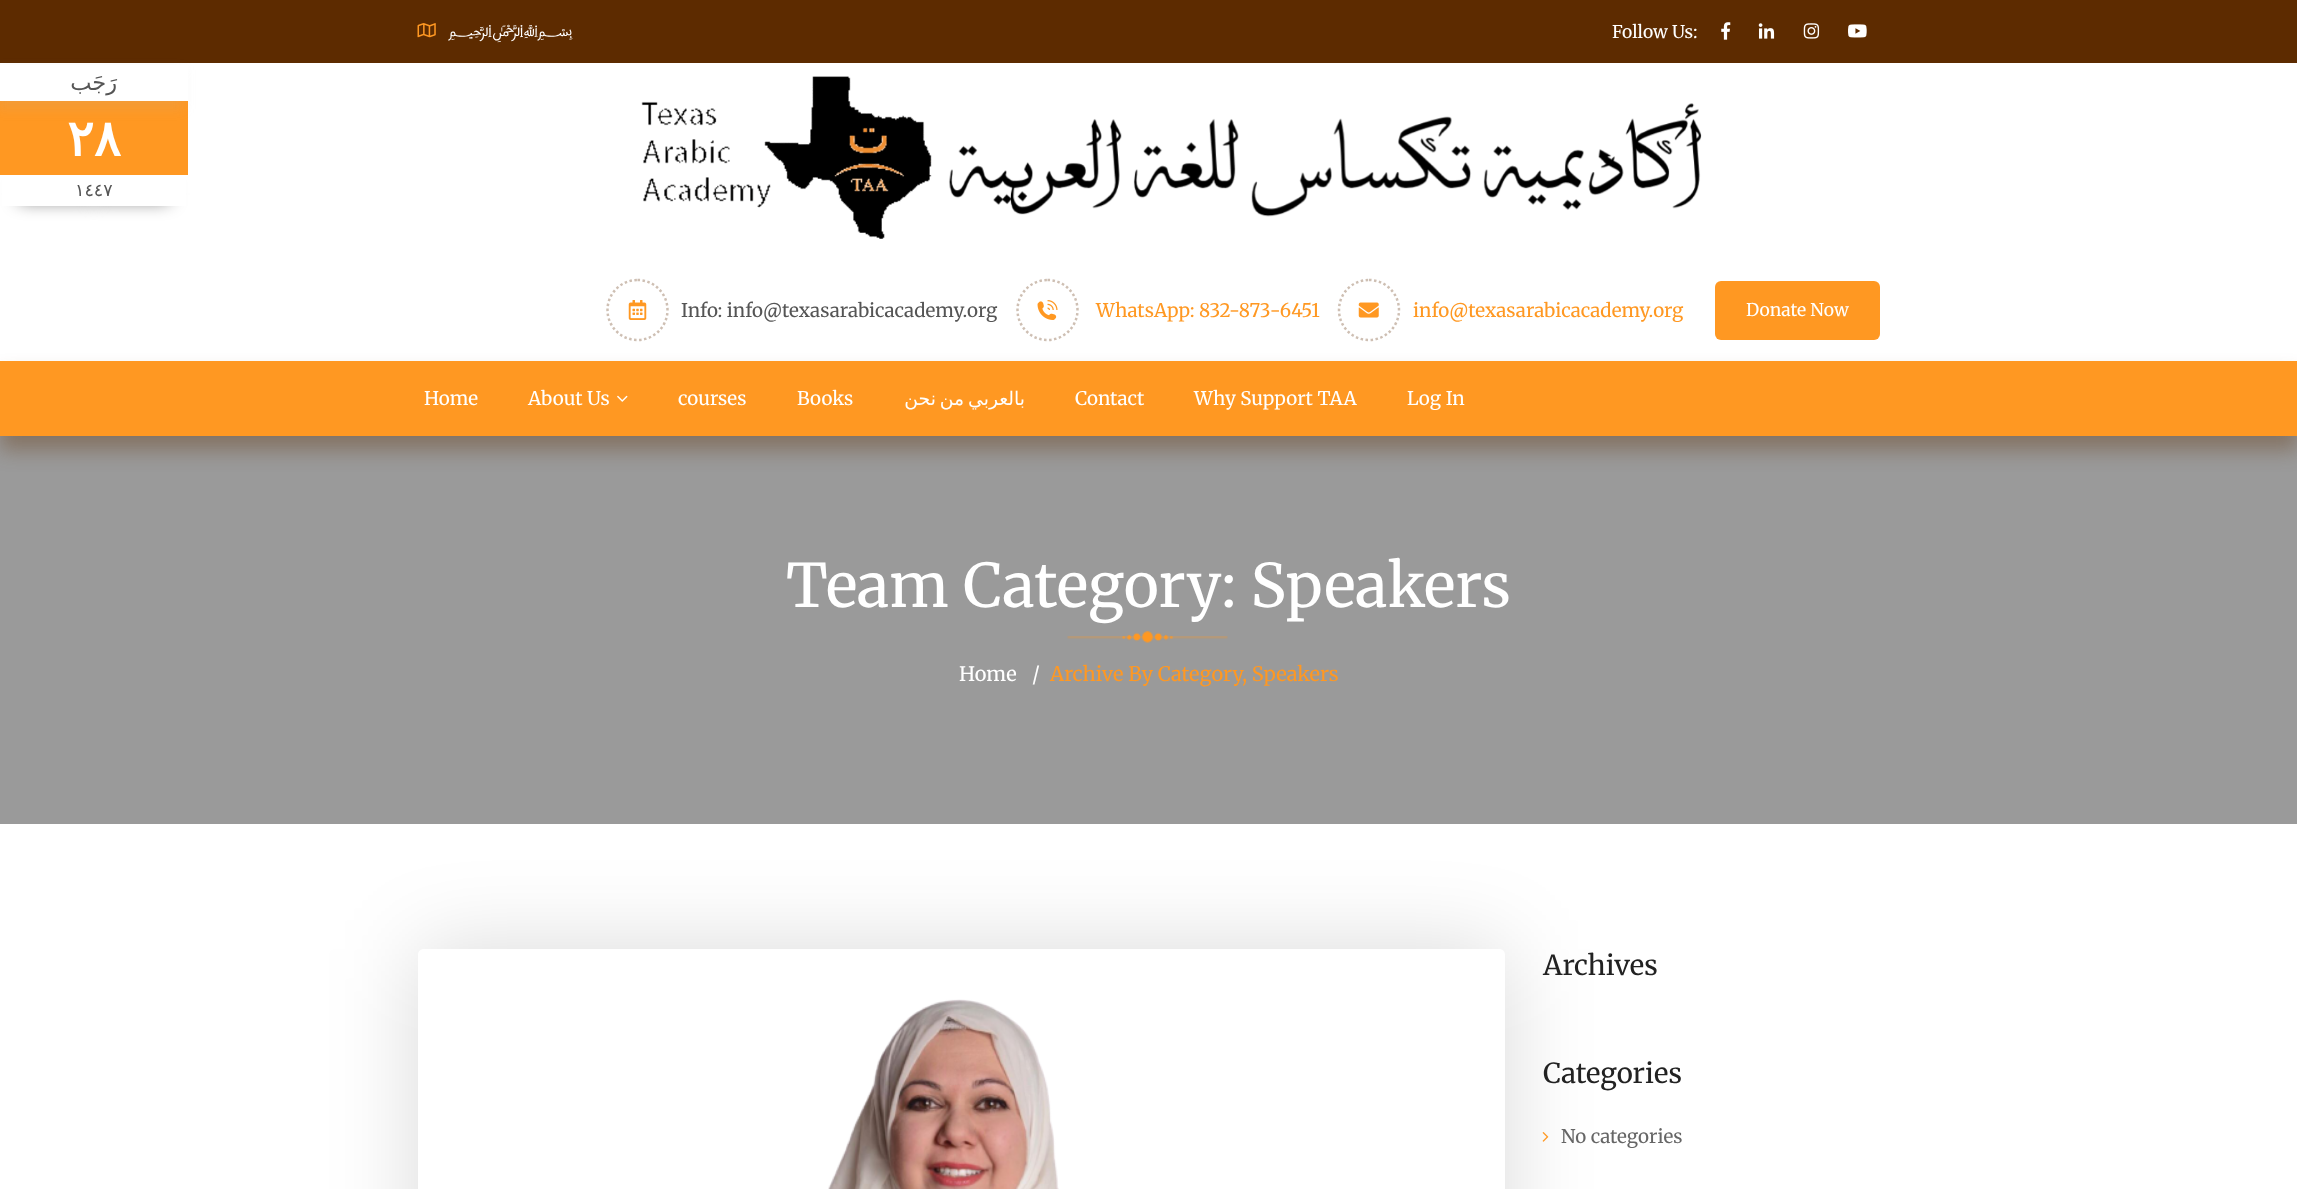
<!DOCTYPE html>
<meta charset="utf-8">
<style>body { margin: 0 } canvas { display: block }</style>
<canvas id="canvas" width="2297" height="1189"></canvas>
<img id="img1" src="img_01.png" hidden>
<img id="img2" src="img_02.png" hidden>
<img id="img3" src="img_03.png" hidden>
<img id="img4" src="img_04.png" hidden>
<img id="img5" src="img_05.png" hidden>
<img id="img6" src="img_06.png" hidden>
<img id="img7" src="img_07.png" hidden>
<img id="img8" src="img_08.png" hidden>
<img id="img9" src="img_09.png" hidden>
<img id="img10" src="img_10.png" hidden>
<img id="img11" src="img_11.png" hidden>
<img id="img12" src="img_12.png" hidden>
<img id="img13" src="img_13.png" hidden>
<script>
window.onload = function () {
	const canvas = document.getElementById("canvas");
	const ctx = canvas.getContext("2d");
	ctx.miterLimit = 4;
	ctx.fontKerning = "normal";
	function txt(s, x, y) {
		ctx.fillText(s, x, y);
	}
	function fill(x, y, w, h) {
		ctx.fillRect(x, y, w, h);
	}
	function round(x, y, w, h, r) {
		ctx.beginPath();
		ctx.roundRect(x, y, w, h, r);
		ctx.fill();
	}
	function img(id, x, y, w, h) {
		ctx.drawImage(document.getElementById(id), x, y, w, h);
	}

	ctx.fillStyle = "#FFFFFF";
	fill(0, 0, 2297, 1189);
	ctx.fillStyle = "#5D2B00";
	fill(0, 0, 2297, 63);
	img("img1", 417, 23, 19, 15);
	img("img2", 1721, 22, 10, 18);
	img("img3", 1758, 23, 17, 16);
	img("img4", 1803, 23, 17, 16);
	img("img5", 1848, 24, 19, 14);
	ctx.fillStyle = "rgba(0, 0, 0, 0.7)";
	ctx.filter = "blur(9px)";
	ctx.beginPath();
	ctx.rect(19, 188, 75, 12);
	ctx.fill();
	ctx.filter = "none";
	ctx.filter = "blur(9px)";
	ctx.beginPath();
	ctx.rect(94, 188, 75, 12);
	ctx.fill();
	ctx.filter = "none";
	ctx.fillStyle = "#FF9822";
	fill(0, 101, 188, 74);
	ctx.fillStyle = "rgba(172, 172, 172, 0.15)";
	ctx.filter = "blur(6px)";
	ctx.beginPath();
	ctx.rect(-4, 70, 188, 39);
	ctx.fill();
	ctx.filter = "none";
	ctx.fillStyle = "#FFFFFF";
	fill(0, 65, 188, 36);
	fill(2, 175, 184, 31);
	img("img6", 641, 76, 1061, 163);
	ctx.beginPath();
	ctx.moveTo(637.5, 280);
	ctx.bezierCurveTo(654, 280, 667.5, 293.5, 667.5, 310);
	ctx.bezierCurveTo(667.5, 326.5, 654, 340, 637.5, 340);
	ctx.bezierCurveTo(621, 340, 607.5, 326.5, 607.5, 310);
	ctx.bezierCurveTo(607.5, 293.5, 621, 280, 637.5, 280);
	ctx.closePath();
	ctx.strokeStyle = "#CEBFB3";
	ctx.lineWidth = 2.5;
	ctx.setLineDash([2.5, 2.5]);
	ctx.stroke();
	img("img7", 628, 300, 19, 20);
	ctx.beginPath();
	ctx.moveTo(1047.5, 280);
	ctx.bezierCurveTo(1064, 280, 1077.5, 293.5, 1077.5, 310);
	ctx.bezierCurveTo(1077.5, 326.5, 1064, 340, 1047.5, 340);
	ctx.bezierCurveTo(1031, 340, 1017.5, 326.5, 1017.5, 310);
	ctx.bezierCurveTo(1017.5, 293.5, 1031, 280, 1047.5, 280);
	ctx.closePath();
	ctx.stroke();
	img("img8", 1037, 300, 21, 20);
	ctx.beginPath();
	ctx.moveTo(1369, 280);
	ctx.bezierCurveTo(1385.5, 280, 1399, 293.5, 1399, 310);
	ctx.bezierCurveTo(1399, 326.5, 1385.5, 340, 1369, 340);
	ctx.bezierCurveTo(1352, 340, 1339, 326.5, 1339, 310);
	ctx.bezierCurveTo(1339, 293.5, 1352, 280, 1369, 280);
	ctx.closePath();
	ctx.stroke();
	img("img9", 1358, 302, 21, 16);
	ctx.fillStyle = "#FF9822";
	round(1715, 281, 165, 59, 6);
	ctx.fillStyle = "#9A9A9A";
	fill(0, 436, 2297, 388);
	ctx.fillStyle = "rgba(93, 43, 0, 0.35)";
	ctx.filter = "blur(10px)";
	ctx.beginPath();
	ctx.rect(0, 375, 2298, 75);
	ctx.fill();
	ctx.filter = "none";
	ctx.fillStyle = "#FF9822";
	fill(0, 361, 2297, 75);
	img("img10", 617, 395, 11, 7);
	img("img11", 1067, 631, 161, 12);
	ctx.save();
	ctx.beginPath();
	ctx.moveTo(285, 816);
	ctx.lineTo(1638, 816);
	ctx.lineTo(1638, 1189);
	ctx.lineTo(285, 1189);
	ctx.closePath();
	ctx.moveTo(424, 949);
	ctx.lineTo(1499, 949);
	ctx.bezierCurveTo(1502.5, 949, 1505, 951.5, 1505, 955);
	ctx.lineTo(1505, 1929);
	ctx.bezierCurveTo(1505, 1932.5, 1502.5, 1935, 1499, 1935);
	ctx.lineTo(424, 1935);
	ctx.bezierCurveTo(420.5, 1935, 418, 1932.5, 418, 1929);
	ctx.lineTo(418, 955);
	ctx.bezierCurveTo(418, 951.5, 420.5, 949, 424, 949);
	ctx.closePath();
	ctx.clip("evenodd");
	ctx.fillStyle = "rgba(0, 0, 0, 0.15)";
	ctx.filter = "blur(44px)";
	ctx.beginPath();
	ctx.roundRect(418, 949, 1087, 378, 6);
	ctx.fill();
	ctx.filter = "none";
	ctx.restore();
	img("img12", 828, 999, 231, 190);
	img("img13", 1542, 1132, 7, 10);
	ctx.font = "16.25px Harmattan";
	ctx.fillStyle = "#FFFFFF";
	txt("﷽", 448, 36);
	ctx.font = "17.5px Merriweather";
	txt("Follow Us:", 1612, 38);
	ctx.direction = "rtl";
	ctx.font = "22.5px DejaVu Sans";
	ctx.fillStyle = "#555555";
	txt("رَجَب", 117, 90);
	ctx.direction = "ltr";
	ctx.font = "bold 50px DejaVu Sans";
	ctx.fillStyle = "#FFFFFF";
	txt("٢٨", 67, 156);
	ctx.font = "17.5px DejaVu Sans";
	ctx.fillStyle = "#555555";
	txt("١٤٤٧", 75, 196);
	ctx.font = "18.75px Merriweather";
	txt("Info: info@texasarabicacademy.org", 681, 317);
	ctx.fillStyle = "#FF9822";
	txt("WhatsApp: 832-873-6451", 1096, 317);
	txt("info@texasarabicacademy.org", 1413, 317);
	ctx.font = "17.5px Merriweather";
	ctx.fillStyle = "#FFFFFF";
	txt("Donate Now", 1746, 316);
	ctx.font = "18.75px Merriweather";
	txt("Home", 424, 405);
	txt("About Us", 528, 405);
	txt("courses", 678, 405);
	txt("Books", 797, 405);
	ctx.wordSpacing = "-2px";
	ctx.direction = "rtl";
	ctx.font = "18.75px DejaVu Sans";
	txt("بالعربي من نحن", 1025, 405);
	ctx.wordSpacing = "0px";
	ctx.direction = "ltr";
	ctx.font = "18.75px Merriweather";
	txt("Contact", 1075, 405);
	txt("Why Support TAA", 1194, 405);
	txt("Log In", 1407, 405);
	ctx.font = "60px Merriweather";
	txt("Team Category: Speakers", 786, 607);
	ctx.font = "20px Merriweather";
	txt("Home", 959, 681);
	txt("/", 1032, 681);
	ctx.fillStyle = "#FF9822";
	txt("Archive By Category, Speakers", 1050, 681);
	ctx.font = "27.5px Merriweather";
	ctx.fillStyle = "#222222";
	txt("Archives", 1543, 975);
	txt("Categories", 1543, 1083);
	ctx.font = "18.75px Merriweather";
	ctx.fillStyle = "#666666";
	txt("No categories", 1561, 1143);
};
</script>
